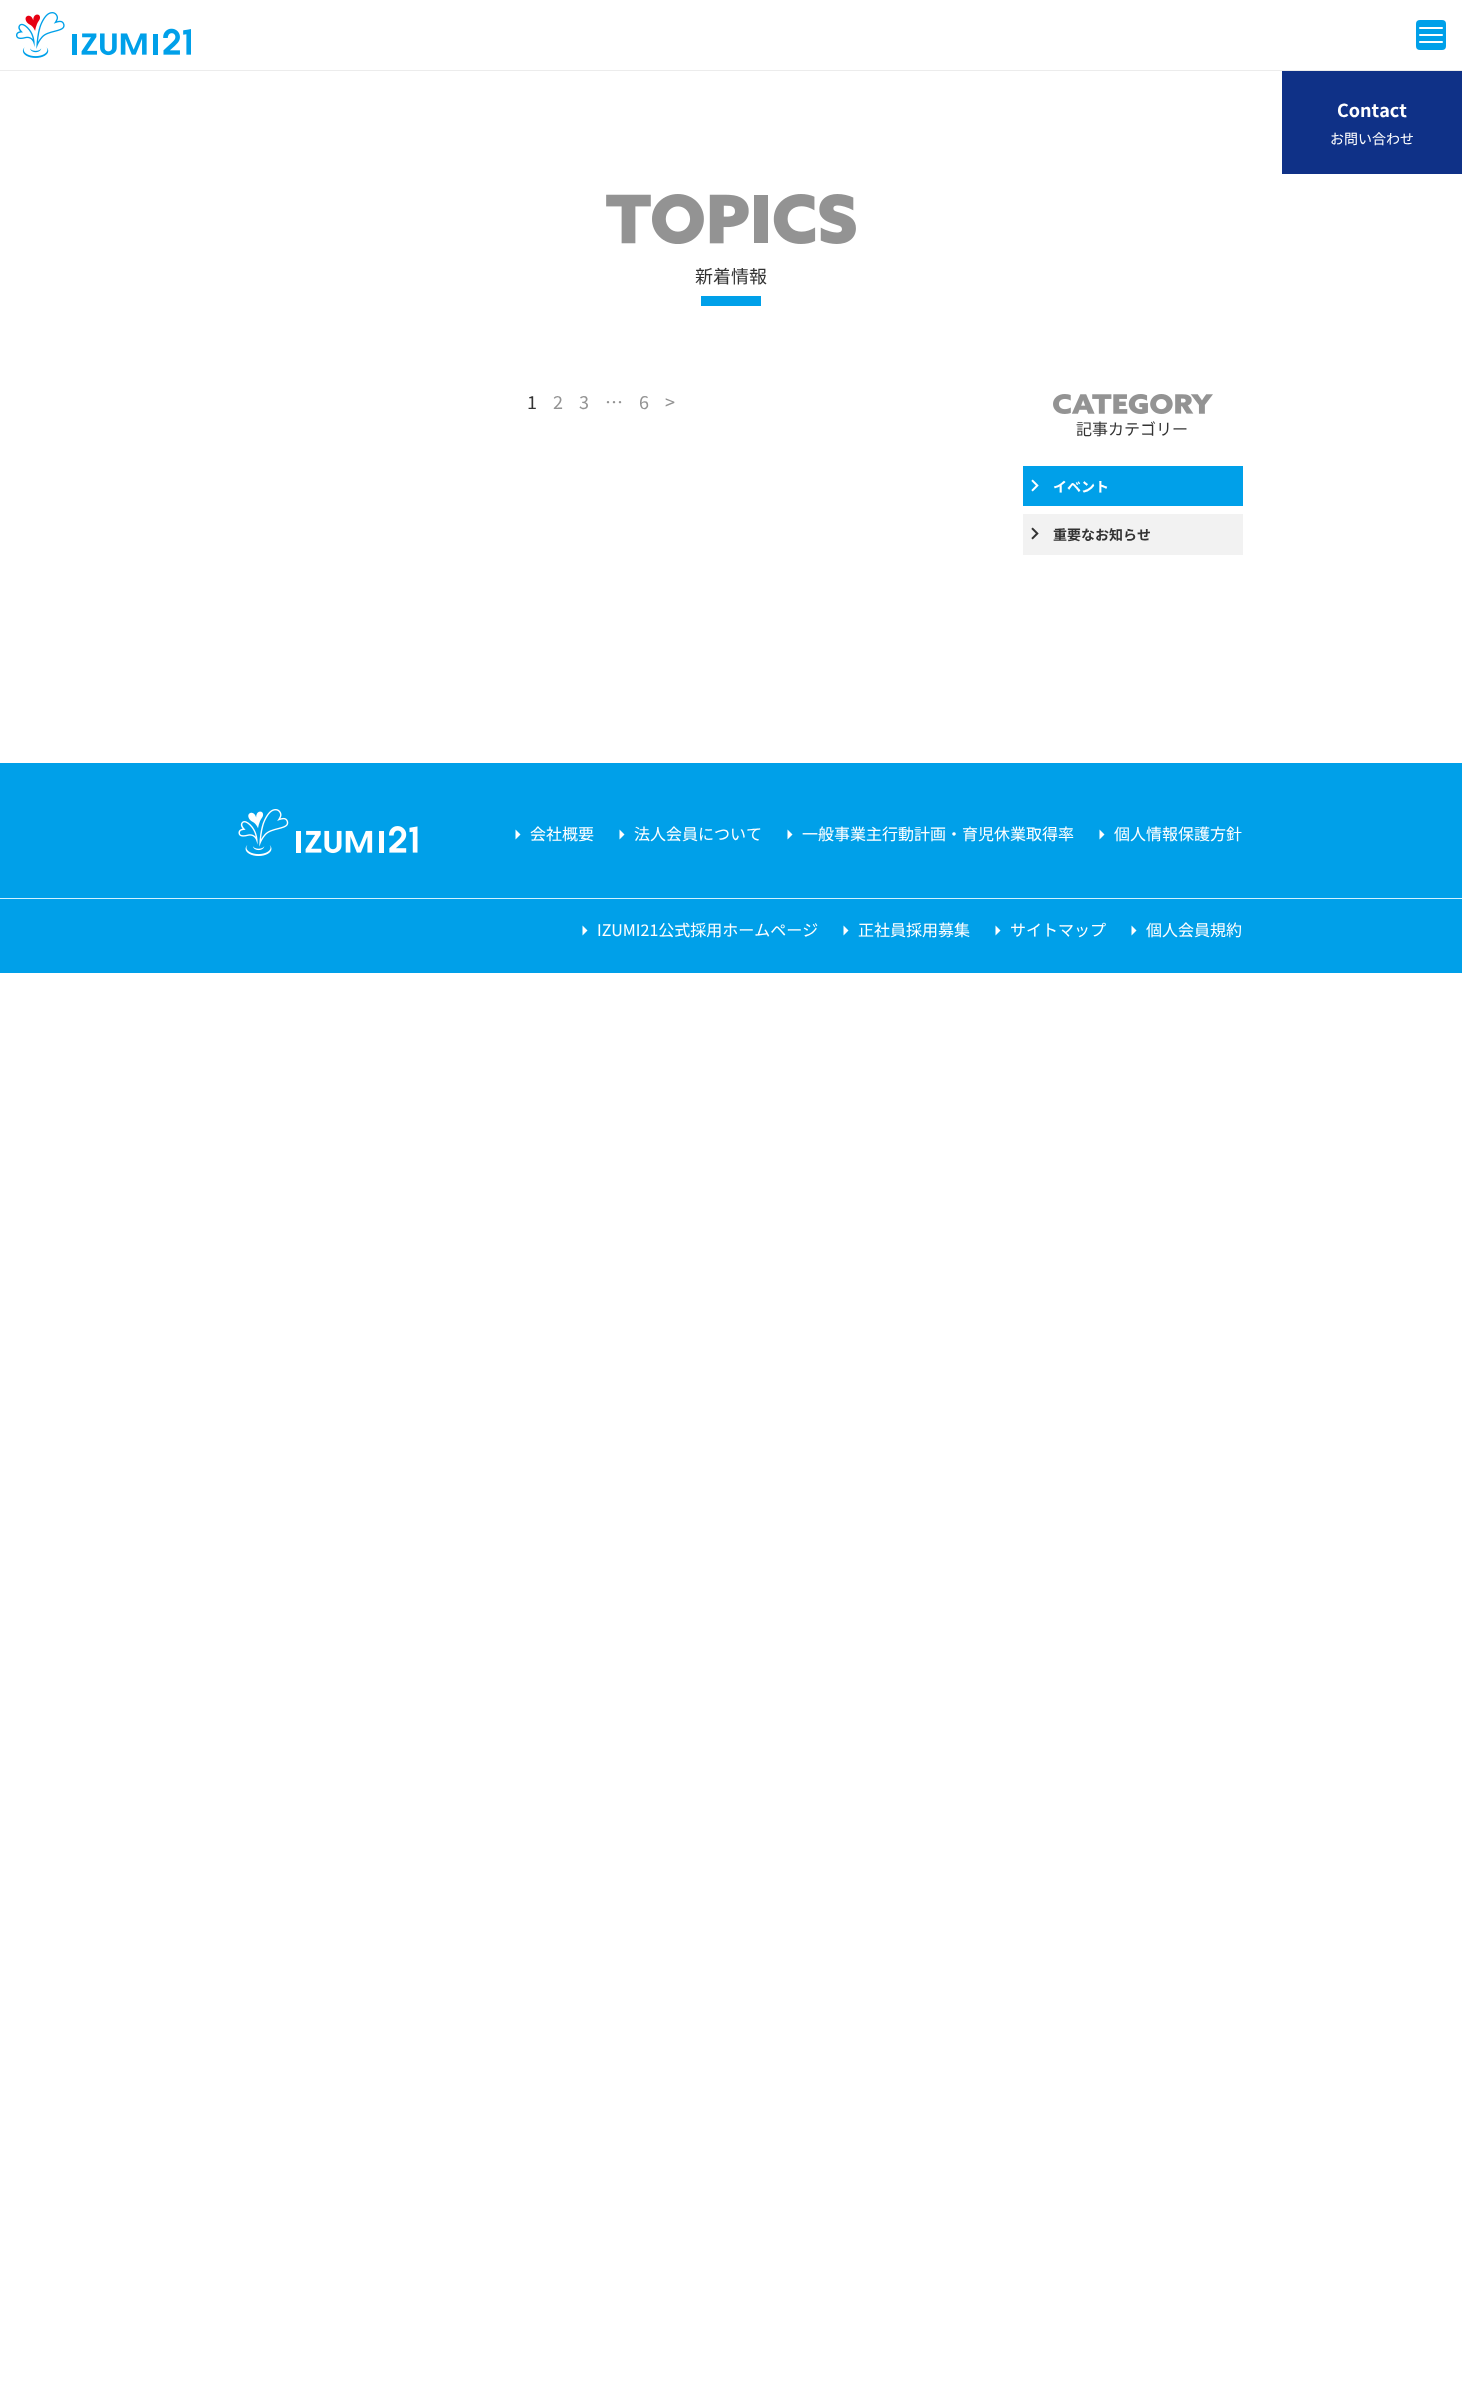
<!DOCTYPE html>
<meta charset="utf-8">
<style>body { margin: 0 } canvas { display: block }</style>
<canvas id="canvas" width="1462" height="2406"></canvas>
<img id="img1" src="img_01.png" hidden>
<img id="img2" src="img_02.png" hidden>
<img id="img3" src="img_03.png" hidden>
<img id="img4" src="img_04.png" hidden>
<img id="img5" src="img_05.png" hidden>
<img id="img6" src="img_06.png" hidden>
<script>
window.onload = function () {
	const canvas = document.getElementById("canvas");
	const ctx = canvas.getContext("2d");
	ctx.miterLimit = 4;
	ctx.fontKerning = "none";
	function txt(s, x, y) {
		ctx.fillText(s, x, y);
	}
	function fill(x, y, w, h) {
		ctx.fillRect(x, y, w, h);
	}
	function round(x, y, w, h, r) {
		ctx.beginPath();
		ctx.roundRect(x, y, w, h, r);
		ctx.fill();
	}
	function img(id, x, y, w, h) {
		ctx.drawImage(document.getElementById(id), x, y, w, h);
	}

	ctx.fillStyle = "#FFFFFF";
	fill(0, 0, 1462, 2406);
	ctx.fillStyle = "#ECECEC";
	fill(0, 70, 1462, 1);
	img("img1", 16, 12, 175, 46);
	ctx.fillStyle = "#00A0E9";
	round(1416, 20, 30, 30, 4);
	ctx.fillStyle = "#FFFFFF";
	round(1419, 27, 24, 2, 1);
	round(1419, 34, 24, 2, 1);
	round(1419, 41, 24, 2, 1);
	ctx.fillStyle = "#0F3187";
	fill(1282, 71, 180, 103);
	img("img2", 606, 194, 250, 50);
	ctx.fillStyle = "#00A0E9";
	fill(701, 296, 60, 10);
	img("img3", 1053, 394, 160, 20);
	fill(1023, 466, 220, 40);
	img("img4", 1031, 479, 8, 13);
	ctx.fillStyle = "#F2F2F2";
	fill(1023, 514, 220, 41);
	img("img5", 1031, 527, 8, 13);
	ctx.fillStyle = "#00A0E9";
	fill(0, 763, 1462, 210);
	img("img6", 238, 809, 180, 47);
	ctx.fillStyle = "#FFFFFF";
	ctx.beginPath();
	ctx.moveTo(515.5, 839.5);
	ctx.lineTo(520.5, 834.5);
	ctx.lineTo(515.5, 829.5);
	ctx.closePath();
	ctx.fill();
	ctx.beginPath();
	ctx.moveTo(619.5, 839.5);
	ctx.lineTo(624.5, 834.5);
	ctx.lineTo(619.5, 829.5);
	ctx.closePath();
	ctx.fill();
	ctx.beginPath();
	ctx.moveTo(787.5, 839.5);
	ctx.lineTo(792.5, 834.5);
	ctx.lineTo(787.5, 829.5);
	ctx.closePath();
	ctx.fill();
	ctx.beginPath();
	ctx.moveTo(1099.5, 839.5);
	ctx.lineTo(1104.5, 834.5);
	ctx.lineTo(1099.5, 829.5);
	ctx.closePath();
	ctx.fill();
	ctx.fillStyle = "#D2F2FF";
	fill(0, 898, 1462, 1);
	ctx.fillStyle = "#FFFFFF";
	ctx.beginPath();
	ctx.moveTo(582.5, 935.5);
	ctx.lineTo(587.5, 930.5);
	ctx.lineTo(582.5, 925.5);
	ctx.closePath();
	ctx.fill();
	ctx.beginPath();
	ctx.moveTo(843.5, 935.5);
	ctx.lineTo(848.5, 930.5);
	ctx.lineTo(843.5, 925.5);
	ctx.closePath();
	ctx.fill();
	ctx.beginPath();
	ctx.moveTo(995.5, 935.5);
	ctx.lineTo(1000.5, 930.5);
	ctx.lineTo(995.5, 925.5);
	ctx.closePath();
	ctx.fill();
	ctx.beginPath();
	ctx.moveTo(1131.5, 935.5);
	ctx.lineTo(1136.5, 930.5);
	ctx.lineTo(1131.5, 925.5);
	ctx.closePath();
	ctx.fill();
	ctx.font = "bold 18px Noto Sans JP";
	txt("Contact", 1337, 117);
	ctx.font = "14px Noto Sans JP";
	txt("お問い合わせ", 1330, 144);
	ctx.font = "18px Noto Sans JP";
	ctx.fillStyle = "#333333";
	txt("新着情報", 695, 283);
	txt("1", 527, 409);
	ctx.fillStyle = "#939393";
	txt("2", 553, 409);
	txt("3", 579, 409);
	txt("…", 605, 409);
	txt("6", 639, 409);
	txt(">", 665, 409);
	ctx.font = "16px Noto Sans JP";
	ctx.fillStyle = "#333333";
	txt("記事カテゴリー", 1076, 435);
	ctx.font = "bold 14px Noto Sans JP";
	ctx.fillStyle = "#FFFFFF";
	txt("イベント", 1053, 492);
	ctx.fillStyle = "#333333";
	txt("重要なお知らせ", 1053, 540);
	ctx.font = "16px Noto Sans JP";
	ctx.fillStyle = "#FFFFFF";
	txt("会社概要", 530, 840);
	txt("法人会員について", 634, 840);
	txt("一般事業主行動計画・育児休業取得率", 802, 840);
	txt("個人情報保護方針", 1114, 840);
	txt("IZUMI21公式採用ホームページ", 597, 936);
	txt("正社員採用募集", 858, 936);
	txt("サイトマップ", 1010, 936);
	txt("個人会員規約", 1146, 936);
};
</script>
